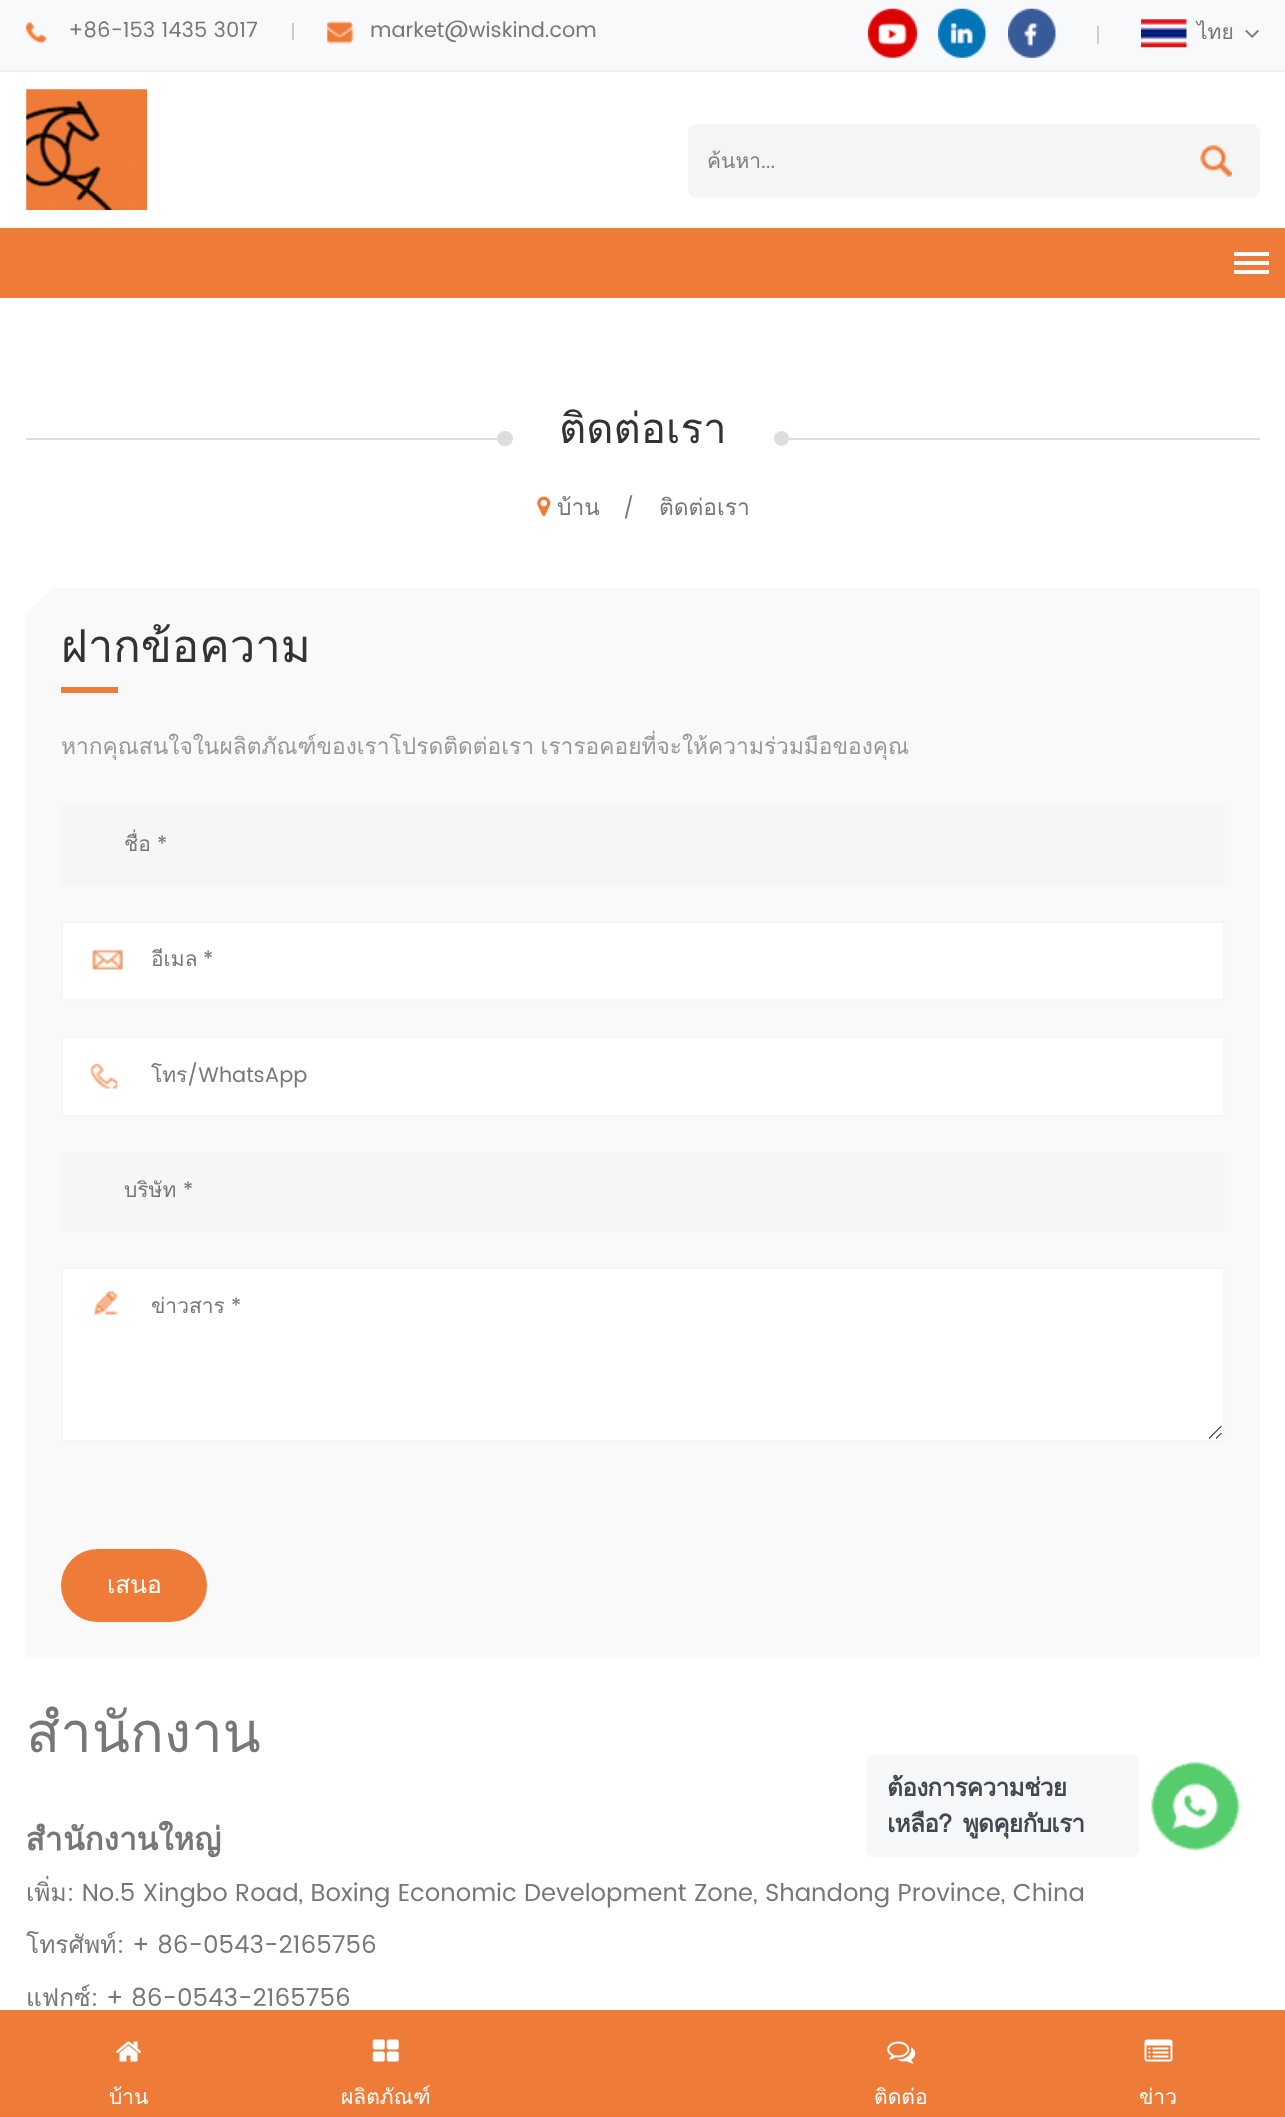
<!DOCTYPE html>
<meta charset="utf-8">
<style>body { margin: 0 } canvas { display: block }</style>
<canvas id="canvas" width="1285" height="2117"></canvas>
<img id="img1" src="img_01.png" hidden>
<img id="img2" src="img_02.png" hidden>
<img id="img3" src="img_03.png" hidden>
<img id="img4" src="img_04.png" hidden>
<img id="img5" src="img_05.png" hidden>
<img id="img6" src="img_06.png" hidden>
<img id="img7" src="img_07.png" hidden>
<img id="img8" src="img_08.png" hidden>
<img id="img9" src="img_09.png" hidden>
<img id="img10" src="img_10.png" hidden>
<img id="img11" src="img_11.png" hidden>
<img id="img12" src="img_12.png" hidden>
<img id="img13" src="img_13.png" hidden>
<img id="img14" src="img_14.png" hidden>
<img id="img15" src="img_15.png" hidden>
<img id="img16" src="img_16.png" hidden>
<img id="img17" src="img_17.png" hidden>
<img id="img18" src="img_18.png" hidden>
<script>
window.onload = function () {
	const canvas = document.getElementById("canvas");
	const ctx = canvas.getContext("2d");
	ctx.miterLimit = 4;
	ctx.fontKerning = "normal";
	function txt(s, x, y) {
		ctx.fillText(s, x, y);
	}
	function fill(x, y, w, h) {
		ctx.fillRect(x, y, w, h);
	}
	function round(x, y, w, h, r) {
		ctx.beginPath();
		ctx.roundRect(x, y, w, h, r);
		ctx.fill();
	}
	function img(id, x, y, w, h) {
		ctx.drawImage(document.getElementById(id), x, y, w, h);
	}

	ctx.fillStyle = "#FFFFFF";
	fill(0, 0, 1285, 2117);
	ctx.fillStyle = "#F8F9FB";
	fill(0, 0, 1285, 70);
	ctx.fillStyle = "#EEF0F5";
	fill(0, 70, 1285, 2);
	img("img1", 26, 21, 22, 23);
	img("img2", 327, 21, 27, 23);
	ctx.fillStyle = "#CCCCCC";
	fill(292, 23, 2, 17);
	img("img3", 868, 8, 49, 50);
	img("img4", 938, 8, 49, 50);
	img("img5", 1008, 8, 49, 50);
	fill(1097, 26, 2, 18);
	img("img6", 1141, 19, 46, 29);
	img("img7", 1245, 30, 14, 8);
	img("img8", 26, 89, 121, 121);
	ctx.fillStyle = "#F5F5F5";
	round(688, 124, 572, 74, 9);
	img("img9", 1200, 145, 32, 32);
	ctx.fillStyle = "#EF7B39";
	fill(0, 228, 1285, 70);
	ctx.fillStyle = "#FFFFFF";
	fill(1234, 252, 35, 4);
	fill(1234, 261, 35, 4);
	fill(1234, 270, 35, 4);
	ctx.fillStyle = "#DDDDDD";
	fill(26, 438, 1234, 2);
	ctx.fillStyle = "#FFFFFF";
	fill(497, 438, 292, 2);
	ctx.fillStyle = "#DDDDDD";
	round(497, 431, 16, 15, 7.5);
	ctx.beginPath();
	ctx.arc(781.5, 438.5, 7.5, 0, Math.PI * 2);
	ctx.fill();
	img("img10", 537, 496, 14, 21);
	ctx.fillStyle = "#F9F9F9";
	ctx.beginPath();
	ctx.moveTo(52, 588);
	ctx.lineTo(26, 614);
	ctx.lineTo(26, 1657);
	ctx.lineTo(1260, 1657);
	ctx.lineTo(1260, 588);
	ctx.closePath();
	ctx.fill();
	ctx.fillStyle = "#EF7B39";
	fill(61, 687, 57, 6);
	ctx.fillStyle = "#F6F6F6";
	fill(61, 805, 1164, 81);
	ctx.fillStyle = "#FFFFFF";
	fill(63, 923, 1160, 76);
	img("img11", 92, 949, 31, 21);
	ctx.strokeStyle = "#F6F6F6";
	ctx.lineWidth = 2;
	ctx.strokeRect(62, 922, 1162, 78);
	fill(63, 1038, 1160, 77);
	img("img12", 90, 1063, 28, 26);
	ctx.strokeRect(62, 1037, 1162, 79);
	ctx.fillStyle = "#F6F6F6";
	fill(61, 1152, 1164, 80);
	ctx.fillStyle = "#FFFFFF";
	fill(63, 1269, 1160, 171);
	img("img13", 94, 1291, 1128, 148);
	ctx.strokeRect(62, 1268, 1162, 173);
	ctx.fillStyle = "#EF7B39";
	round(61, 1549, 146, 73, 36.5);
	ctx.fillStyle = "#F5F7F9";
	round(866, 1755, 273, 102, 7);
	img("img14", 1151, 1761, 89, 90);
	ctx.fillStyle = "#EF7B39";
	fill(0, 2010, 1285, 107);
	img("img15", 115, 2041, 27, 21);
	img("img16", 372, 2039, 27, 23);
	img("img17", 887, 2041, 29, 23);
	img("img18", 1144, 2039, 29, 23);
	ctx.font = "21px Poppins";
	ctx.fillStyle = "#777777";
	txt("+86-153 1435 3017", 68, 37);
	txt("market@wiskind.com", 370, 37);
	ctx.font = "21px Loma";
	txt("ไทย", 1197, 39);
	ctx.save();
	ctx.beginPath();
	ctx.rect(707, 144, 551, 35);
	ctx.clip();
	ctx.fillStyle = "#808080";
	txt("ค้นหา", 707, 168);
	ctx.restore();
	ctx.font = "21px Poppins";
	ctx.fillStyle = "#808080";
	txt("...", 761, 168);
	ctx.font = "42px Loma";
	ctx.fillStyle = "#333333";
	txt("ติดต่อเรา", 559, 443);
	ctx.font = "22.75px Loma";
	ctx.fillStyle = "#777777";
	txt("บ้าน", 557, 515);
	ctx.font = "21px Poppins";
	txt("/", 623, 515);
	ctx.font = "22.75px Loma";
	txt("ติดต่อเรา", 659, 515);
	ctx.font = "45.5px Loma";
	ctx.fillStyle = "#333333";
	txt("ฝากข้อความ", 61, 662);
	ctx.wordSpacing = "-1px";
	ctx.font = "22.75px Loma";
	ctx.fillStyle = "#999999";
	txt("หากคุณสนใจในผลิตภัณฑ์ของเราโปรดติดต่อเรา เรารอคอยที่จะให้ความร่วมมือของคุณ", 61, 754);
	ctx.save();
	ctx.beginPath();
	ctx.rect(124, 826, 1099, 35);
	ctx.clip();
	ctx.wordSpacing = "0px";
	ctx.font = "21px Loma";
	ctx.fillStyle = "#777777";
	txt("ชื่อ", 124, 851);
	ctx.restore();
	ctx.wordSpacing = "0px";
	ctx.font = "21px Poppins";
	ctx.fillStyle = "#777777";
	txt("*", 157, 851);
	ctx.save();
	ctx.beginPath();
	ctx.rect(151, 942, 1072, 35);
	ctx.clip();
	ctx.font = "21px Loma";
	txt("อีเมล", 151, 966);
	ctx.restore();
	txt("*", 203, 966);
	ctx.font = "21px Loma";
	txt("โทร", 151, 1082);
	ctx.font = "21px Poppins";
	txt("/WhatsApp", 187, 1082);
	ctx.font = "21px Loma";
	txt("บริษัท", 124, 1197);
	ctx.font = "21px Poppins";
	txt("*", 183, 1197);
	ctx.font = "21px Loma";
	txt("ข่าวสาร", 151, 1313);
	ctx.font = "21px Poppins";
	txt("*", 231, 1313);
	ctx.font = "24.5px Loma";
	ctx.fillStyle = "#FFFFFF";
	txt("เสนอ", 107, 1593);
	ctx.font = "56px Loma";
	ctx.fillStyle = "#777777";
	txt("สำนักงาน", 26, 1752);
	ctx.font = "bold 31.5px Loma";
	txt("สำนักงานใหญ่", 26, 1850);
	ctx.font = "24.5px Loma";
	txt("เพิ่ม", 26, 1901);
	ctx.font = "24.5px Poppins";
	txt(": No.5 Xingbo Road, Boxing Economic Development Zone, Shandong Province, China", 67, 1901);
	ctx.font = "24.5px Loma";
	txt("โทรศัพท์", 26, 1953);
	ctx.font = "24.5px Poppins";
	txt(": + 86-0543-2165756", 117, 1953);
	ctx.font = "24.5px Loma";
	txt("แฟกซ์", 26, 2006);
	ctx.font = "24.5px Poppins";
	txt(": + 86-0543-2165756", 91, 2006);
	ctx.letterSpacing = "-0.75px";
	ctx.font = "bold 24.5px Loma";
	ctx.fillStyle = "#43474E";
	txt("ต้องการความช่วย", 887, 1796);
	ctx.wordSpacing = "4px";
	txt("เหลือ? พูดคุยกับเรา", 887, 1832);
	ctx.fillStyle = "#FFFFFF";
	fill(30, 2006, 202, 1);
	ctx.letterSpacing = "0px";
	ctx.wordSpacing = "0px";
	ctx.font = "21px Loma";
	txt("บ้าน", 109, 2104);
	txt("ผลิตภัณฑ์", 341, 2104);
	txt("ติดต่อ", 874, 2104);
	txt("ข่าว", 1139, 2104);
};
</script>
